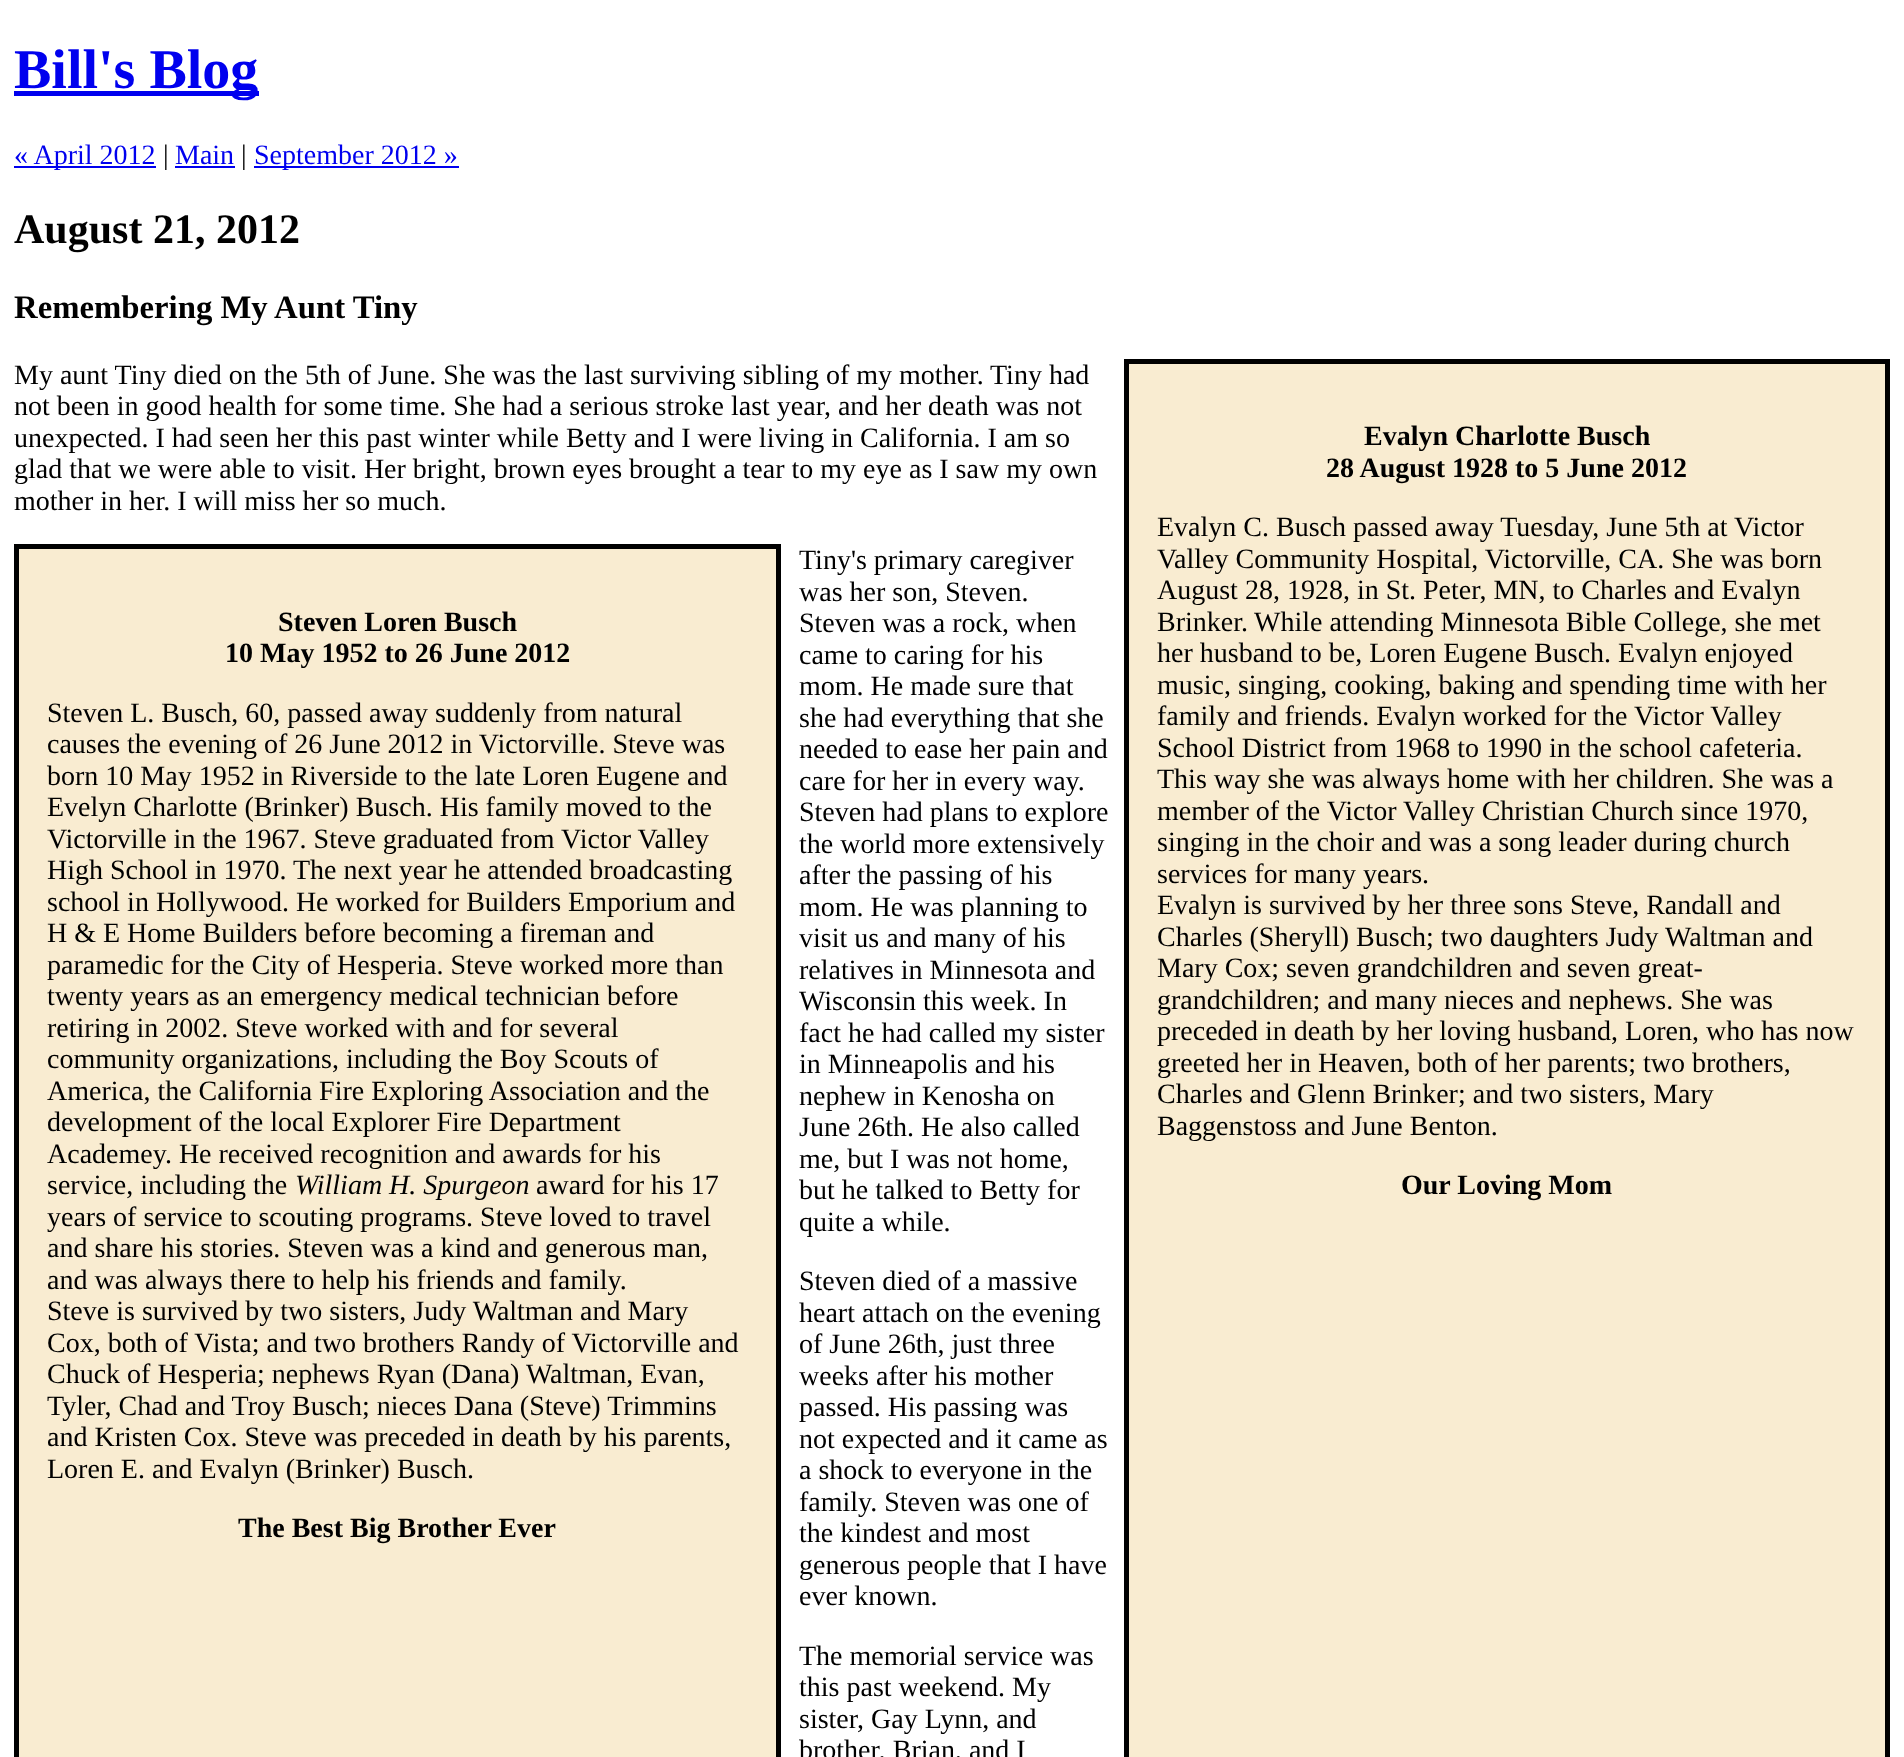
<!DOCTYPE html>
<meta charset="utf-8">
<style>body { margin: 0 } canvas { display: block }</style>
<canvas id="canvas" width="1904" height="1757"></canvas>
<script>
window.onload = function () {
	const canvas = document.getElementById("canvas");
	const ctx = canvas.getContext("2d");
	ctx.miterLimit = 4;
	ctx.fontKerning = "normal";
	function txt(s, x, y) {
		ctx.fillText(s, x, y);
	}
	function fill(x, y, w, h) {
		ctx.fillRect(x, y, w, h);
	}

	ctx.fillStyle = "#FFFFFF";
	fill(0, 0, 1904, 1757);
	ctx.fillStyle = "#0000EE";
	fill(14, 91, 245, 5);
	fill(14, 166, 142, 2);
	fill(175, 166, 60, 2);
	fill(254, 166, 205, 2);
	ctx.fillStyle = "#F9ECD1";
	ctx.beginPath();
	ctx.rect(1126.5, 361.5, 761, 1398);
	ctx.fill();
	ctx.strokeStyle = "#000000";
	ctx.lineWidth = 5;
	ctx.stroke();
	ctx.beginPath();
	ctx.rect(16.5, 546.5, 762, 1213);
	ctx.fill();
	ctx.stroke();
	ctx.font = "bold 56px Liberation Serif";
	ctx.fillStyle = "#0000EE";
	txt("Bill's Blog", 14, 88);
	ctx.font = "28px Liberation Serif";
	txt("« April 2012", 14, 164);
	ctx.fillStyle = "#000000";
	txt("|", 163, 164);
	ctx.fillStyle = "#0000EE";
	txt("Main", 175, 164);
	ctx.fillStyle = "#000000";
	txt("|", 241, 164);
	ctx.fillStyle = "#0000EE";
	txt("September 2012 »", 254, 164);
	ctx.font = "bold 42px Liberation Serif";
	ctx.fillStyle = "#000000";
	txt("August 21, 2012", 14, 243);
	ctx.font = "bold 32.75px Liberation Serif";
	txt("Remembering My Aunt Tiny", 14, 318);
	ctx.font = "28px Liberation Serif";
	txt("My aunt Tiny died on the 5th of June. She was the last surviving sibling of my mother.", 14, 384);
	txt("Tiny had", 990, 384);
	txt("not been in good health for some time. She had a serious stroke last year, and her death was not", 14, 415);
	txt("unexpected. I had seen her this past winter while Betty and I were living in California. I am so", 14, 447);
	txt("glad that we were able to visit. Her bright, brown eyes brought a tear to my eye as I saw my own", 14, 478);
	txt("mother in her. I will miss her so much.", 14, 510);
	ctx.font = "bold 28px Liberation Serif";
	txt("Evalyn Charlotte Busch", 1364, 445);
	txt("28 August 1928 to 5 June 2012", 1326, 477);
	ctx.font = "28px Liberation Serif";
	txt("Evalyn C. Busch passed away Tuesday, June 5th at Victor", 1157, 536);
	txt("Valley Community Hospital, Victorville, CA. She was born", 1157, 568);
	txt("August 28, 1928, in St. Peter, MN, to Charles and Evalyn", 1157, 599);
	txt("Brinker.", 1157, 631);
	txt("While attending Minnesota Bible College, she met", 1254, 631);
	txt("her husband to be, Loren Eugene Busch. Evalyn enjoyed", 1157, 662);
	txt("music, singing, cooking, baking and spending time with her", 1157, 694);
	txt("family and friends. Evalyn worked for the Victor Valley", 1157, 725);
	txt("School District from 1968 to 1990 in the school cafeteria.", 1157, 757);
	txt("This way she was always home with her children. She was a", 1157, 788);
	txt("member of the Victor Valley Christian Church since 1970,", 1157, 820);
	txt("singing in the choir and was a song leader during church", 1157, 851);
	txt("services for many years.", 1157, 883);
	txt("Evalyn is survived by her three sons Steve, Randall and", 1157, 914);
	txt("Charles (Sheryll) Busch; two daughters Judy Waltman and", 1157, 946);
	txt("Mary Cox; seven grandchildren and seven great-", 1157, 977);
	txt("grandchildren; and many nieces and nephews. She was", 1157, 1009);
	txt("preceded in death by her loving husband, Loren, who has now", 1157, 1040);
	txt("greeted her in Heaven, both of her parents; two brothers,", 1157, 1072);
	txt("Charles and Glenn Brinker; and two sisters, Mary", 1157, 1103);
	txt("Baggenstoss and June Benton.", 1157, 1135);
	ctx.font = "bold 28px Liberation Serif";
	txt("Our Loving Mom", 1401, 1194);
	txt("Steven Loren Busch", 278, 631);
	txt("10 May 1952 to 26 June 2012", 225, 662);
	ctx.font = "28px Liberation Serif";
	txt("Steven L. Busch, 60, passed away suddenly from natural", 47, 722);
	txt("causes the evening of 26 June 2012 in Victorville. Steve was", 47, 753);
	txt("born 10 May 1952 in Riverside to the late Loren Eugene and", 47, 785);
	txt("Evelyn Charlotte (Brinker) Busch. His family moved to the", 47, 816);
	txt("Victorville in the 1967. Steve graduated from Victor Valley", 47, 848);
	txt("High School in 1970.", 47, 879);
	txt("The next year he attended broadcasting", 293, 879);
	txt("school in Hollywood. He worked for Builders Emporium and", 47, 911);
	txt("H & E Home Builders before becoming a fireman and", 47, 942);
	txt("paramedic for the City of Hesperia. Steve worked more than", 47, 974);
	txt("twenty years as an emergency medical technician before", 47, 1005);
	txt("retiring in 2002. Steve worked with and for several", 47, 1037);
	txt("community organizations, including the Boy Scouts of", 47, 1068);
	txt("America, the California Fire Exploring Association and the", 47, 1100);
	txt("development of the local Explorer Fire Department", 47, 1131);
	txt("Academey. He received recognition and awards for his", 47, 1163);
	txt("service, including the", 47, 1194);
	ctx.font = "italic 28px Liberation Serif";
	txt("William H. Spurgeon", 295, 1194);
	ctx.font = "28px Liberation Serif";
	txt("award for his 17", 536, 1194);
	txt("years of service to scouting programs. Steve loved to travel", 47, 1226);
	txt("and share his stories. Steven was a kind and generous man,", 47, 1257);
	txt("and was always there to help his friends and family.", 47, 1289);
	txt("Steve is survived by two sisters, Judy Waltman and Mary", 47, 1320);
	txt("Cox, both of Vista; and two brothers Randy of Victorville and", 47, 1352);
	txt("Chuck of Hesperia; nephews Ryan (Dana) Waltman, Evan,", 47, 1383);
	txt("Tyler, Chad and Troy Busch; nieces Dana (Steve) Trimmins", 47, 1415);
	txt("and Kristen Cox. Steve was preceded in death by his parents,", 47, 1446);
	txt("Loren E. and Evalyn (Brinker) Busch.", 47, 1478);
	ctx.font = "bold 28px Liberation Serif";
	txt("The Best Big Brother Ever", 238, 1537);
	ctx.font = "28px Liberation Serif";
	txt("Tiny's primary caregiver", 799, 569);
	txt("was her son, Steven.", 799, 601);
	txt("Steven was a rock, when", 799, 632);
	txt("came to caring for his", 799, 664);
	txt("mom. He made sure that", 799, 695);
	txt("she had everything that she", 799, 727);
	txt("needed to ease her pain and", 799, 758);
	txt("care for her in every way.", 799, 790);
	txt("Steven had plans to explore", 799, 821);
	txt("the world more extensively", 799, 853);
	txt("after the passing of his", 799, 884);
	txt("mom. He was planning to", 799, 916);
	txt("visit us and many of his", 799, 947);
	txt("relatives in Minnesota and", 799, 979);
	txt("Wisconsin this week. In", 799, 1010);
	txt("fact he had called my sister", 799, 1042);
	txt("in Minneapolis and his", 799, 1073);
	txt("nephew in Kenosha on", 799, 1105);
	txt("June 26th. He also called", 799, 1136);
	txt("me, but I was not home,", 799, 1168);
	txt("but he talked to Betty for", 799, 1199);
	txt("quite a while.", 799, 1231);
	txt("Steven died of a massive", 799, 1290);
	txt("heart attach on the evening", 799, 1322);
	txt("of June 26th, just three", 799, 1353);
	txt("weeks after his mother", 799, 1385);
	txt("passed. His passing was", 799, 1416);
	txt("not expected and it came as", 799, 1448);
	txt("a shock to everyone in the", 799, 1479);
	txt("family. Steven was one of", 799, 1511);
	txt("the kindest and most", 799, 1542);
	txt("generous people that I have", 799, 1574);
	txt("ever known.", 799, 1605);
	txt("The memorial service was", 799, 1665);
	txt("this past weekend. My", 799, 1696);
	txt("sister, Gay Lynn, and", 799, 1728);
	txt("brother, Brian, and I", 799, 1759);
};
</script>
